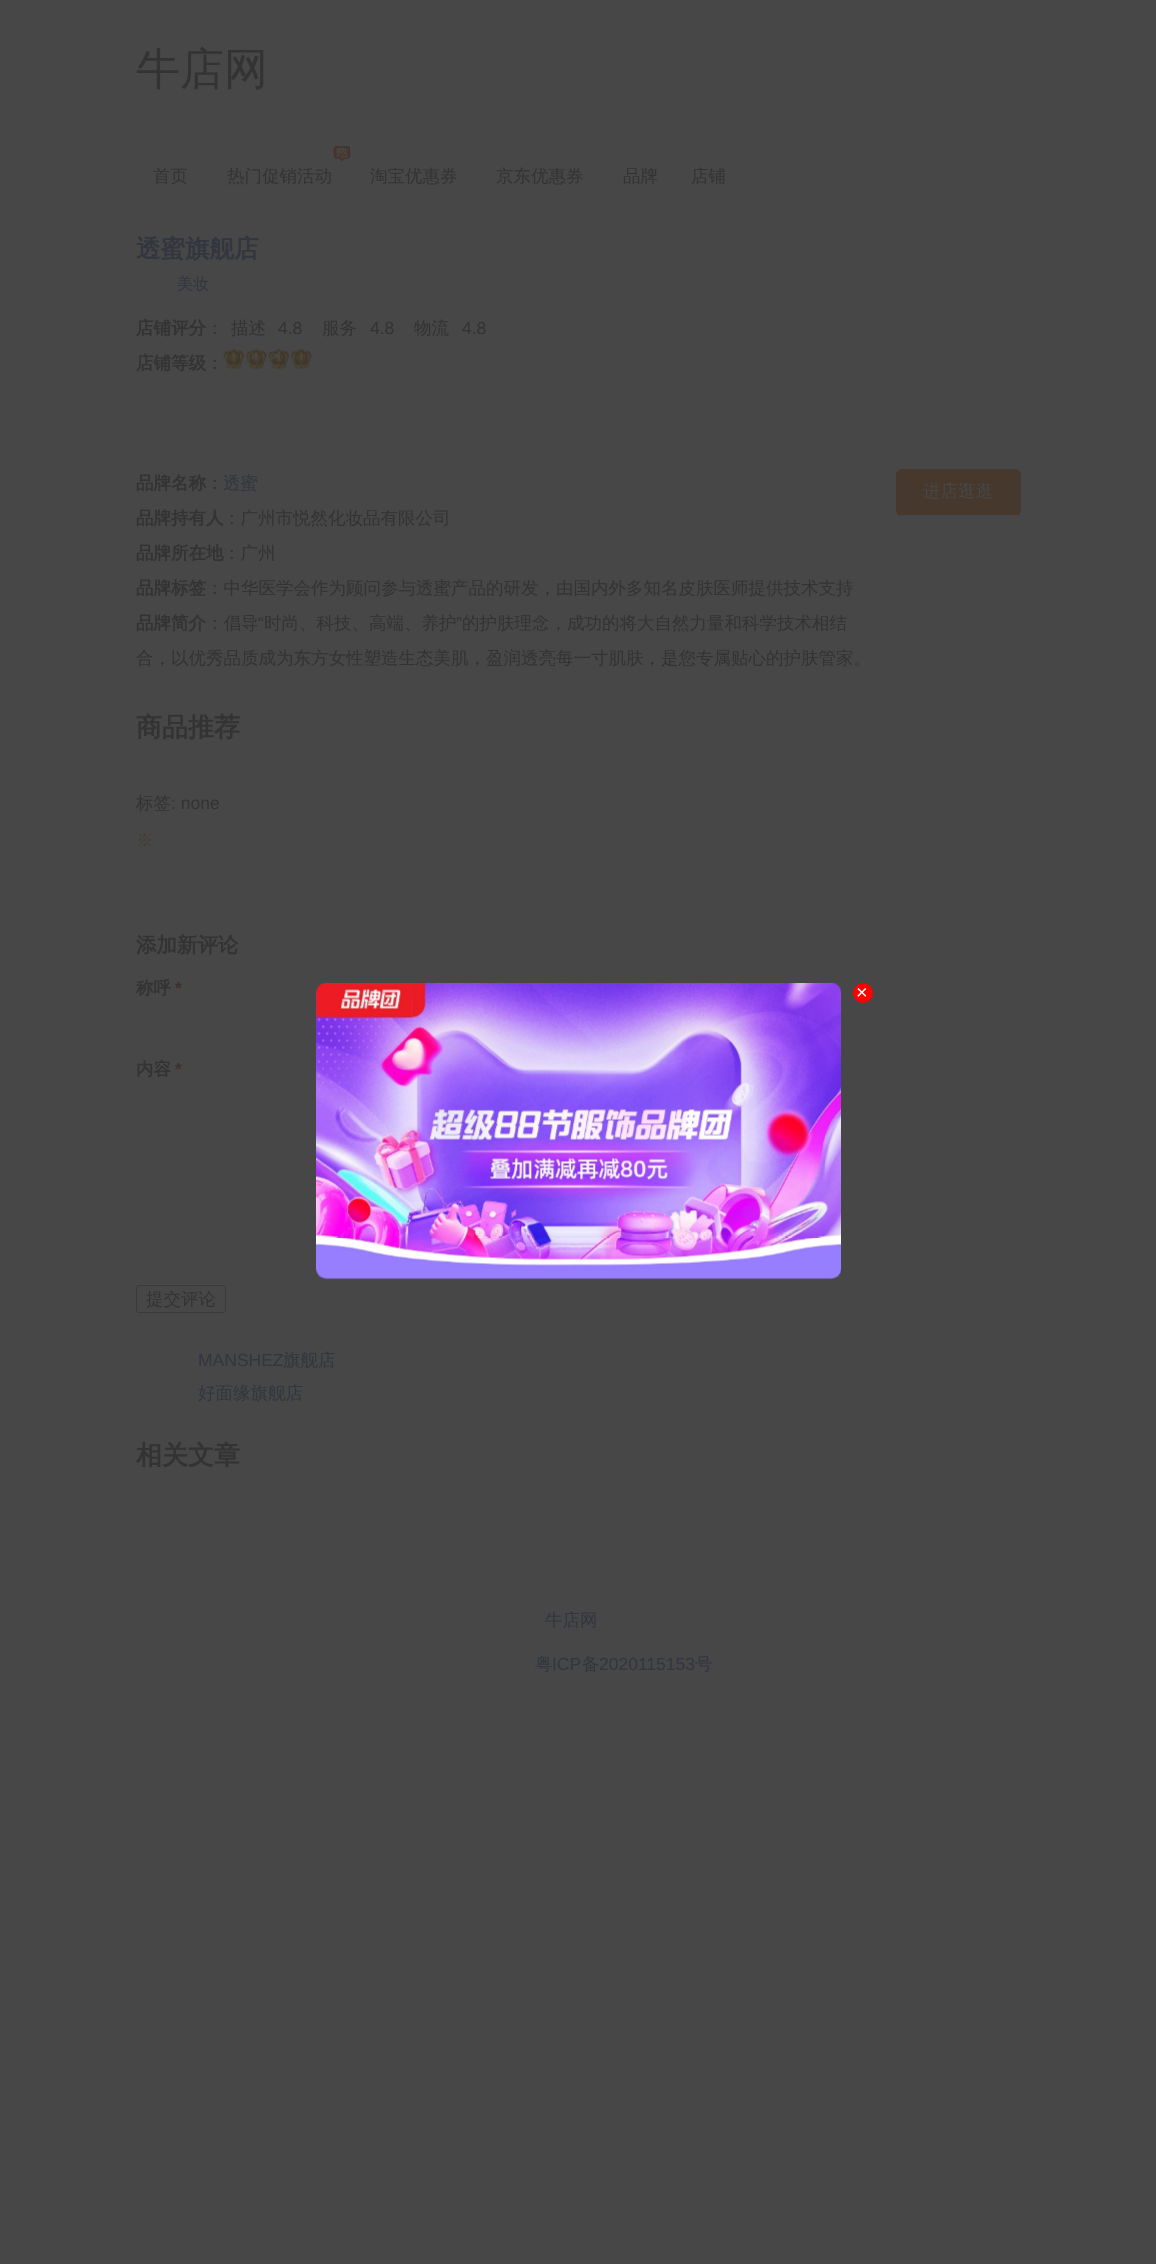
<!DOCTYPE html>
<meta charset="utf-8">
<style>body { margin: 0 } canvas { display: block }</style>
<canvas id="canvas" width="1156" height="2264"></canvas>
<img id="img1" src="img_01.png" hidden>
<img id="img2" src="img_02.png" hidden>
<img id="img3" src="img_03.png" hidden>
<script>
window.onload = function () {
	const canvas = document.getElementById("canvas");
	const ctx = canvas.getContext("2d");
	ctx.miterLimit = 4;
	ctx.fontKerning = "normal";
	function txt(s, x, y) {
		ctx.fillText(s, x, y);
	}
	function fill(x, y, w, h) {
		ctx.fillRect(x, y, w, h);
	}
	function round(x, y, w, h, r) {
		ctx.beginPath();
		ctx.roundRect(x, y, w, h, r);
		ctx.fill();
	}
	function img(id, x, y, w, h) {
		ctx.drawImage(document.getElementById(id), x, y, w, h);
	}

	ctx.fillStyle = "#474747";
	fill(0, 0, 1156, 2264);
	img("img1", 333, 146, 17, 16);
	img("img2", 223, 348, 89, 21);
	ctx.fillStyle = "#47382E";
	round(896, 469, 125, 47, 6);
	ctx.fillStyle = "#464646";
	fill(900, 515, 119, 1);
	ctx.beginPath();
	ctx.roundRect(136.5, 1285.5, 89, 27, 2);
	ctx.strokeStyle = "#3A3A3A";
	ctx.stroke();
	img("img3", 316, 983, 525, 297);
	ctx.fillStyle = "#FF0000";
	ctx.beginPath();
	ctx.arc(863, 993, 10, 0, Math.PI * 2);
	ctx.fill();
	ctx.font = "500 44px WenQuanYi Zen Hei";
	ctx.fillStyle = "#333333";
	txt("牛店网", 136, 84);
	ctx.font = "500 17.5px WenQuanYi Zen Hei";
	txt("首页", 153, 182);
	txt("热门促销活动", 227, 182);
	txt("淘宝优惠券", 370, 182);
	txt("京东优惠券", 496, 182);
	txt("品牌", 623, 182);
	txt("店铺", 691, 182);
	ctx.font = "bold 24.5px WenQuanYi Zen Hei";
	ctx.fillStyle = "#33363F";
	txt("透蜜旗舰店", 136, 257);
	ctx.font = "500 16px WenQuanYi Zen Hei";
	txt("美妆", 177, 289);
	ctx.font = "bold 17.5px WenQuanYi Zen Hei";
	ctx.fillStyle = "#333333";
	txt("店铺评分", 136, 334);
	ctx.font = "500 17.5px WenQuanYi Zen Hei";
	txt("：", 206, 334);
	txt("描述", 231, 334);
	ctx.font = "17.5px Liberation Sans";
	txt("4.8", 278, 334);
	ctx.font = "500 17.5px WenQuanYi Zen Hei";
	txt("服务", 322, 334);
	ctx.font = "17.5px Liberation Sans";
	txt("4.8", 370, 334);
	ctx.font = "500 17.5px WenQuanYi Zen Hei";
	txt("物流", 414, 334);
	ctx.font = "17.5px Liberation Sans";
	txt("4.8", 462, 334);
	ctx.font = "bold 17.5px WenQuanYi Zen Hei";
	txt("店铺等级", 136, 369);
	ctx.font = "500 17.5px WenQuanYi Zen Hei";
	txt("：", 206, 369);
	ctx.font = "bold 17.5px WenQuanYi Zen Hei";
	txt("品牌名称", 136, 489);
	ctx.font = "500 17.5px WenQuanYi Zen Hei";
	txt("：", 206, 489);
	ctx.fillStyle = "#33363F";
	txt("透蜜", 223, 489);
	ctx.font = "bold 17.5px WenQuanYi Zen Hei";
	ctx.fillStyle = "#333333";
	txt("品牌持有人", 136, 524);
	ctx.font = "500 17.5px WenQuanYi Zen Hei";
	txt("：广州市悦然化妆品有限公司", 223, 524);
	ctx.font = "bold 17.5px WenQuanYi Zen Hei";
	txt("品牌所在地", 136, 559);
	ctx.font = "500 17.5px WenQuanYi Zen Hei";
	txt("：广州", 223, 559);
	ctx.font = "bold 17.5px WenQuanYi Zen Hei";
	txt("品牌标签", 136, 594);
	ctx.font = "500 17.5px WenQuanYi Zen Hei";
	txt("：中华医学会作为顾问参与透蜜产品的研发，由国内外多知名皮肤医师提供技术支持", 206, 594);
	ctx.font = "bold 17.5px WenQuanYi Zen Hei";
	txt("品牌简介", 136, 629);
	ctx.font = "500 17.5px WenQuanYi Zen Hei";
	txt("：倡导", 206, 629);
	ctx.font = "17.5px Liberation Sans";
	txt("“", 258, 629);
	ctx.font = "500 17.5px WenQuanYi Zen Hei";
	txt("时尚、科技、高端、养护", 264, 629);
	ctx.font = "17.5px Liberation Sans";
	txt("”", 456, 629);
	ctx.font = "500 17.5px WenQuanYi Zen Hei";
	txt("的护肤理念，成功的将大自然力量和科学技术相结", 462, 629);
	txt("合，以优秀品质成为东方女性塑造生态美肌，盈润透亮每一寸肌肤，是您专属贴心的护肤管家。", 136, 664);
	ctx.fillStyle = "#474747";
	txt("进店逛逛", 923, 497);
	ctx.font = "bold 26px WenQuanYi Zen Hei";
	ctx.fillStyle = "#333333";
	txt("商品推荐", 136, 736);
	ctx.font = "500 17.5px WenQuanYi Zen Hei";
	txt("标签", 136, 809);
	ctx.font = "17.5px Liberation Sans";
	txt(": none", 171, 809);
	ctx.font = "500 17.5px WenQuanYi Zen Hei";
	ctx.fillStyle = "#423D2E";
	txt("※", 136, 846);
	ctx.font = "bold 20.5px WenQuanYi Zen Hei";
	ctx.fillStyle = "#333333";
	txt("添加新评论", 136, 952);
	ctx.font = "bold 17.5px WenQuanYi Zen Hei";
	txt("称呼", 136, 994);
	ctx.font = "bold 17.5px Liberation Sans";
	ctx.fillStyle = "#422E2E";
	txt("*", 175, 994);
	ctx.font = "bold 17.5px WenQuanYi Zen Hei";
	ctx.fillStyle = "#333333";
	txt("内容", 136, 1075);
	ctx.font = "bold 17.5px Liberation Sans";
	ctx.fillStyle = "#422E2E";
	txt("*", 175, 1075);
	ctx.font = "500 17.5px WenQuanYi Zen Hei";
	ctx.fillStyle = "#333333";
	txt("提交评论", 146, 1305);
	ctx.font = "17.5px Liberation Sans";
	ctx.fillStyle = "#33363F";
	txt("MANSHEZ", 198, 1366);
	ctx.font = "500 17.5px WenQuanYi Zen Hei";
	txt("旗舰店", 283, 1366);
	txt("好面缘旗舰店", 198, 1399);
	ctx.font = "bold 26px WenQuanYi Zen Hei";
	ctx.fillStyle = "#333333";
	txt("相关文章", 136, 1464);
	ctx.font = "20px Liberation Sans";
	ctx.fillStyle = "#FFFFFF";
	txt("×", 856, 999);
	ctx.font = "500 17.5px WenQuanYi Zen Hei";
	ctx.fillStyle = "#33363F";
	txt("牛店网", 545, 1626);
	txt("粤", 535, 1670);
	ctx.font = "17.5px Liberation Sans";
	txt("ICP", 552, 1670);
	ctx.font = "500 17.5px WenQuanYi Zen Hei";
	txt("备", 582, 1670);
	ctx.font = "17.5px Liberation Sans";
	txt("2020115153", 599, 1670);
	ctx.font = "500 17.5px WenQuanYi Zen Hei";
	txt("号", 695, 1670);
};
</script>
